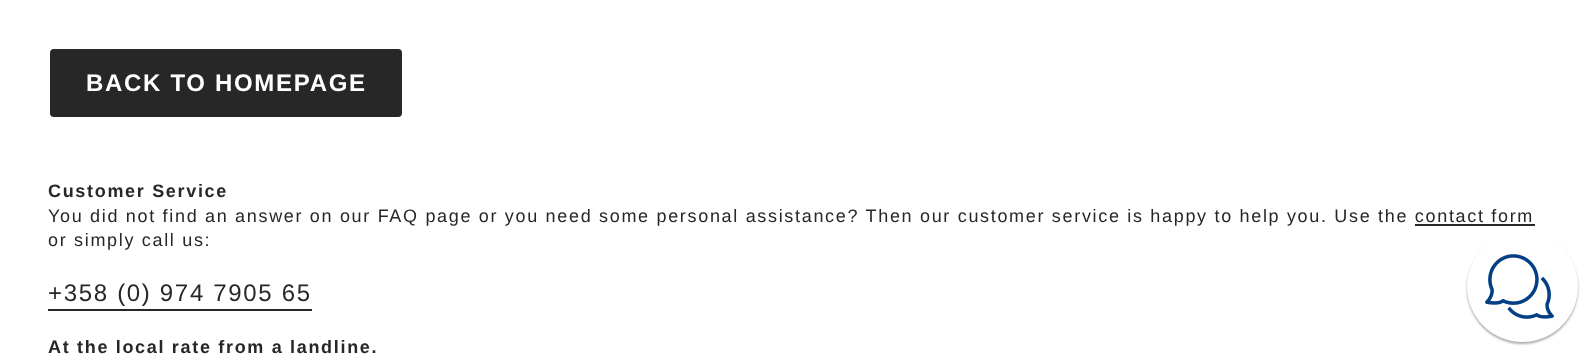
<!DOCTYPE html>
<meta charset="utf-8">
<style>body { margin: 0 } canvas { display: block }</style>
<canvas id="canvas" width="1595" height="360"></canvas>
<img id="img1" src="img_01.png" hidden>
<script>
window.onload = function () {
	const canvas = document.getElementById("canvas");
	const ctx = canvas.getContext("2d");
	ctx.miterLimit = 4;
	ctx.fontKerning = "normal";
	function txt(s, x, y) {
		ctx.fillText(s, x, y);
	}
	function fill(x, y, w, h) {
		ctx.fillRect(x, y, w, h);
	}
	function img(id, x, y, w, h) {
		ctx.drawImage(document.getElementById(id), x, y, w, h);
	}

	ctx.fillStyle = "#FFFFFF";
	fill(0, 0, 1595, 360);
	ctx.fillStyle = "#282727";
	ctx.beginPath();
	ctx.roundRect(49, 48, 354, 70, 5);
	ctx.fill();
	ctx.strokeStyle = "#FFFFFF";
	ctx.lineWidth = 2;
	ctx.stroke();
	fill(1415, 224, 120, 2);
	fill(48, 309, 264, 2);
	ctx.fillStyle = "rgba(0, 0, 0, 0.33)";
	ctx.filter = "blur(1px)";
	ctx.beginPath();
	ctx.roundRect(1467, 233, 111, 111, 55.5);
	ctx.fill();
	ctx.filter = "none";
	ctx.fillStyle = "#FFFFFF";
	ctx.beginPath();
	ctx.arc(1522.5, 286.5, 55.5, 0, Math.PI * 2);
	ctx.fill();
	img("img1", 1485, 254, 69, 65);
	ctx.letterSpacing = "1.68px";
	ctx.font = "bold 24px Liberation Sans";
	txt("BACK TO HOMEPAGE", 86, 91);
	ctx.font = "bold 18px Liberation Sans";
	ctx.fillStyle = "#282727";
	txt("Customer Service", 48, 197);
	ctx.font = "18px Liberation Sans";
	txt("You did not find an answer on our FAQ page or you need some personal assistance? Then our customer service is happy to help you. Use the contact form", 48, 222);
	txt("or simply call us:", 48, 246);
	ctx.font = "24px Liberation Sans";
	txt("+358 (0) 974 7905 65", 48, 301);
	ctx.font = "bold 18px Liberation Sans";
	txt("At the local rate from a landline.", 48, 353);
};
</script>
